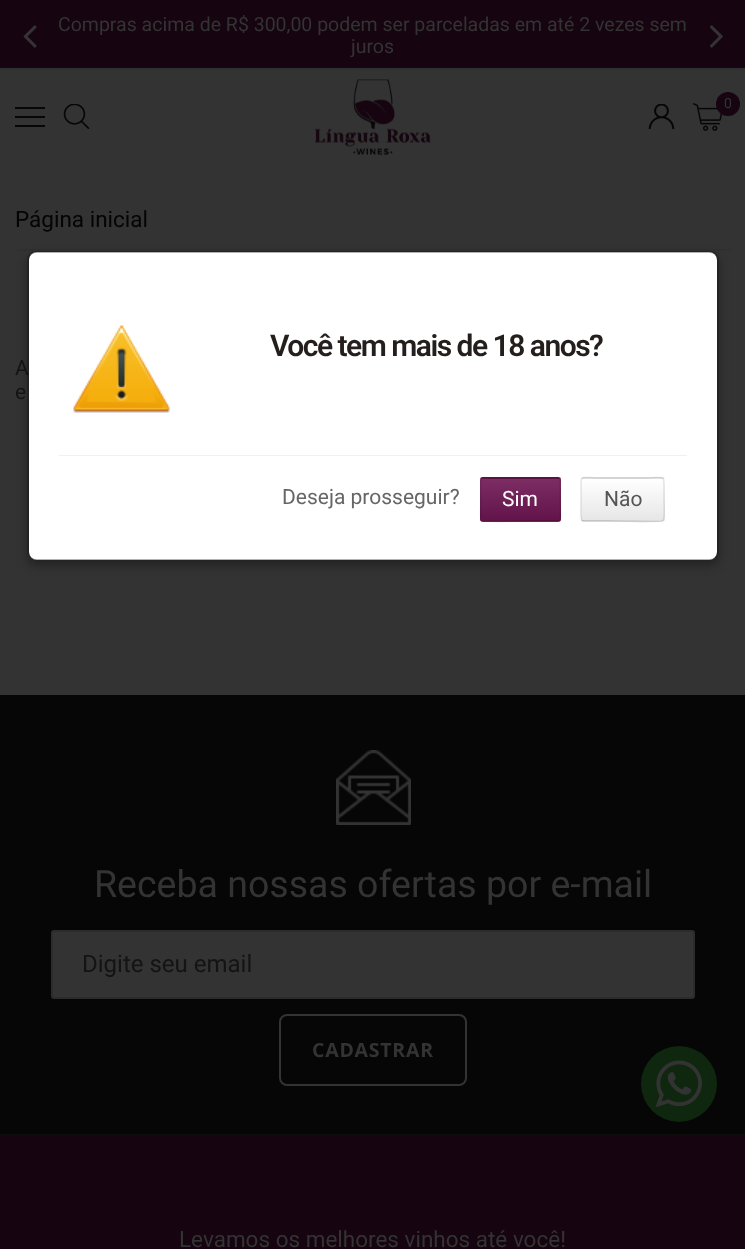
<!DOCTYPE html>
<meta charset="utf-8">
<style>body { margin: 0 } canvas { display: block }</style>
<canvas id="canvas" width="745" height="1249"></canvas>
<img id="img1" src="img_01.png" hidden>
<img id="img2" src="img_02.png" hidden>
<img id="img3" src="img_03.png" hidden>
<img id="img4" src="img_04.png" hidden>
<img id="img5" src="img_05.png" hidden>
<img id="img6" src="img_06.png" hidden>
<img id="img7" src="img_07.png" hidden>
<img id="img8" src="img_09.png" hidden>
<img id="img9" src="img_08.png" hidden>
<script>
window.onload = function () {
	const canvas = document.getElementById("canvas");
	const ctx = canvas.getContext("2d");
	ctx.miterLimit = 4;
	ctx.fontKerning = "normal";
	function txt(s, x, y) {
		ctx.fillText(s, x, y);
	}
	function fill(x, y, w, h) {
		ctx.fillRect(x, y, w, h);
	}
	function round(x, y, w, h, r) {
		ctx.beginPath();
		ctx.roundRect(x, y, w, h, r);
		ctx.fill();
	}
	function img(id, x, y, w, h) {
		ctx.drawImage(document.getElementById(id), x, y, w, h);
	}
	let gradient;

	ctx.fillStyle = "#333333";
	fill(0, 0, 745, 1249);
	ctx.fillStyle = "#160410";
	fill(0, 0, 745, 68);
	ctx.fillStyle = "#303030";
	fill(0, 68, 745, 2);
	img("img1", 23, 25, 14, 23);
	img("img2", 709, 25, 14, 23);
	fill(15, 249, 716, 2);
	ctx.fillStyle = "#070606";
	fill(0, 695, 745, 439);
	ctx.fillStyle = "#0C0C0B";
	fill(0, 1134, 745, 2);
	img("img3", 336, 750, 75, 75);
	ctx.fillStyle = "#333333";
	ctx.beginPath();
	ctx.roundRect(52, 931, 642, 67, 2);
	ctx.fill();
	ctx.strokeStyle = "#2C2C2C";
	ctx.lineWidth = 2;
	ctx.stroke();
	ctx.beginPath();
	ctx.roundRect(280, 1015, 186, 70, 7);
	ctx.strokeStyle = "#333333";
	ctx.stroke();
	ctx.fillStyle = "#160410";
	fill(0, 1136, 745, 113);
	ctx.fillStyle = "#070606";
	fill(15, 107, 30, 2);
	fill(15, 116, 30, 2);
	fill(15, 125, 30, 2);
	img("img4", 63, 104, 27, 25);
	img("img5", 315, 79, 116, 76);
	img("img6", 648, 104, 27, 25);
	img("img7", 693, 103, 29, 28);
	ctx.fillStyle = "#160410";
	ctx.beginPath();
	ctx.arc(728, 104, 12, 0, Math.PI * 2);
	ctx.fill();
	ctx.save();
	ctx.beginPath();
	ctx.moveTo(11, 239);
	ctx.lineTo(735, 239);
	ctx.lineTo(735, 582);
	ctx.lineTo(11, 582);
	ctx.closePath();
	ctx.moveTo(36, 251);
	ctx.lineTo(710, 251);
	ctx.bezierCurveTo(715, 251, 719, 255, 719, 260);
	ctx.lineTo(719, 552);
	ctx.bezierCurveTo(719, 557, 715, 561, 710, 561);
	ctx.lineTo(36, 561);
	ctx.bezierCurveTo(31, 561, 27, 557, 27, 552);
	ctx.lineTo(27, 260);
	ctx.bezierCurveTo(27, 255, 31, 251, 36, 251);
	ctx.closePath();
	ctx.clip("evenodd");
	ctx.fillStyle = "rgba(0, 0, 0, 0.3)";
	ctx.filter = "blur(5px)";
	ctx.beginPath();
	ctx.roundRect(27, 255, 692, 311, 9);
	ctx.fill();
	ctx.filter = "none";
	ctx.restore();
	ctx.fillStyle = "#FFFFFF";
	round(29, 252, 688, 308, 8);
	ctx.fillStyle = "#0F270E";
	ctx.beginPath();
	ctx.arc(679, 1084, 38, 0, Math.PI * 2);
	ctx.fill();
	img("img8", 655, 1060, 47, 48);
	ctx.font = "19.5px Roboto";
	ctx.fillStyle = "#333333";
	txt("Compras acima de R$ 300,00 podem ser parceladas em até 2 vezes sem", 58, 31);
	txt("juros", 351, 53);
	ctx.font = "22.5px Roboto";
	ctx.fillStyle = "#040404";
	txt("Página inicial", 15, 227);
	ctx.font = "21px Roboto";
	ctx.fillStyle = "#141414";
	txt("A", 15, 375);
	txt("e", 15, 399);
	ctx.font = "37.5px Roboto";
	ctx.fillStyle = "#333333";
	txt("Receba nossas ofertas por e-mail", 94, 897);
	ctx.font = "24px Roboto";
	ctx.fillStyle = "#141414";
	txt("Digite seu email", 82, 972);
	ctx.letterSpacing = "0.75px";
	ctx.font = "bold 19.5px Open Sans";
	ctx.fillStyle = "#333333";
	txt("CADASTRAR", 312, 1057);
	ctx.letterSpacing = "0px";
	ctx.font = "22.5px Roboto";
	txt("Levamos os melhores vinhos até você!", 179, 1247);
	ctx.font = "14px Roboto";
	txt("0", 724, 108);
	ctx.beginPath();
	ctx.roundRect(28, 252, 690, 308, 8);
	ctx.strokeStyle = "rgba(0, 0, 0, 0.3)";
	ctx.stroke();
	ctx.fillStyle = "#F0F0F0";
	fill(59, 455, 628, 1);
	img("img9", 73, 325, 97, 88);
	ctx.letterSpacing = "-1.5px";
	ctx.font = "600 30px Roboto";
	ctx.fillStyle = "#241F1D";
	txt("Você tem mais de 18 anos?", 270, 356);
	ctx.letterSpacing = "0px";
	ctx.font = "21px Roboto";
	ctx.fillStyle = "#666666";
	txt("Deseja prosseguir?", 282, 504);
	ctx.fillStyle = "#6D1551";
	round(480, 477, 81, 45, 3);
	gradient = ctx.createLinearGradient(521, 437, 521, 479);
	gradient.addColorStop(0, "rgba(255, 255, 255, 0.1)");
	gradient.addColorStop(1, "rgba(0, 0, 0, 0.1)");
	ctx.fillStyle = gradient;
	fill(480, 477, 81, 2);
	gradient = ctx.createLinearGradient(521, 479, 521, 521);
	gradient.addColorStop(0, "rgba(255, 255, 255, 0.1)");
	gradient.addColorStop(1, "rgba(0, 0, 0, 0.1)");
	ctx.fillStyle = gradient;
	fill(480, 479, 81, 42);
	gradient = ctx.createLinearGradient(521, 521, 521, 563);
	gradient.addColorStop(0, "rgba(255, 255, 255, 0.1)");
	gradient.addColorStop(1, "rgba(0, 0, 0, 0.1)");
	ctx.fillStyle = gradient;
	fill(480, 521, 81, 1);
	ctx.beginPath();
	ctx.moveTo(559.5, 520.5);
	ctx.lineTo(558, 521);
	ctx.lineTo(545.5, 521);
	ctx.bezierCurveTo(539, 521, 483.5, 522, 482, 521);
	ctx.lineTo(481.5, 520.5);
	ctx.strokeStyle = "rgba(0, 0, 0, 0.2)";
	ctx.lineWidth = 1.5;
	ctx.stroke();
	ctx.beginPath();
	ctx.moveTo(481.5, 520.5);
	ctx.bezierCurveTo(479.5, 519, 481, 502.5, 481, 499.5);
	ctx.lineTo(481, 486.5);
	ctx.bezierCurveTo(481, 474.5, 481, 478, 495.5, 478);
	ctx.lineTo(545.5, 478);
	ctx.bezierCurveTo(560, 478, 560, 474.5, 560, 486.5);
	ctx.lineTo(560, 499.5);
	ctx.bezierCurveTo(560, 502.5, 561.5, 519, 559.5, 520.5);
	ctx.strokeStyle = "rgba(0, 0, 0, 0.1)";
	ctx.stroke();
	ctx.fillStyle = "#FFFFFF";
	txt("Sim", 502, 506);
	ctx.save();
	ctx.beginPath();
	ctx.roundRect(581, 477, 84, 45, 3);
	ctx.clip();
	gradient = ctx.createLinearGradient(623, 437, 623, 479);
	gradient.addColorStop(0, "#FFFFFF");
	gradient.addColorStop(1, "#E6E6E6");
	ctx.fillStyle = gradient;
	fill(581, 477, 84, 2);
	gradient = ctx.createLinearGradient(623, 479, 623, 521);
	gradient.addColorStop(0, "#FFFFFF");
	gradient.addColorStop(1, "#E6E6E6");
	ctx.fillStyle = gradient;
	fill(581, 479, 84, 42);
	ctx.restore();
	ctx.beginPath();
	ctx.moveTo(663, 520.5);
	ctx.lineTo(662.5, 521);
	ctx.bezierCurveTo(661, 522, 603.5, 521, 596.5, 521);
	ctx.lineTo(583.5, 521);
	ctx.lineTo(582, 520.5);
	ctx.strokeStyle = "rgba(0, 0, 0, 0.2)";
	ctx.stroke();
	ctx.beginPath();
	ctx.moveTo(582, 520.5);
	ctx.bezierCurveTo(580, 519, 581, 502.5, 581, 499.5);
	ctx.lineTo(581, 486.5);
	ctx.bezierCurveTo(581, 474, 581.5, 478, 596.5, 478);
	ctx.lineTo(648.5, 478);
	ctx.bezierCurveTo(663.5, 478, 664, 474, 664, 486.5);
	ctx.lineTo(664, 499.5);
	ctx.bezierCurveTo(664, 502.5, 665, 519, 663, 520.5);
	ctx.strokeStyle = "rgba(0, 0, 0, 0.1)";
	ctx.stroke();
	ctx.fillStyle = "#555555";
	txt("Não", 604, 506);
};
</script>
